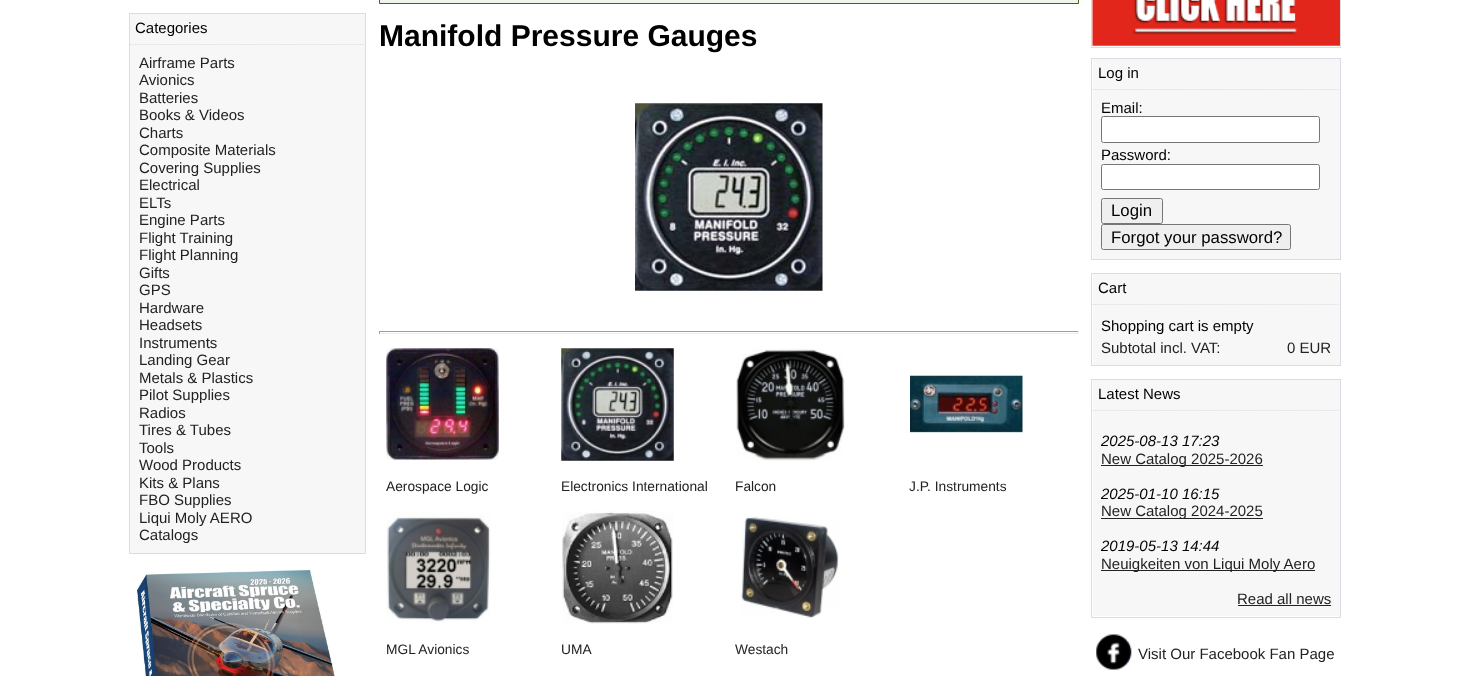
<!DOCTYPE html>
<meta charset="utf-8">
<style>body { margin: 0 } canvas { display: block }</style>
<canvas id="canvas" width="1470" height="676"></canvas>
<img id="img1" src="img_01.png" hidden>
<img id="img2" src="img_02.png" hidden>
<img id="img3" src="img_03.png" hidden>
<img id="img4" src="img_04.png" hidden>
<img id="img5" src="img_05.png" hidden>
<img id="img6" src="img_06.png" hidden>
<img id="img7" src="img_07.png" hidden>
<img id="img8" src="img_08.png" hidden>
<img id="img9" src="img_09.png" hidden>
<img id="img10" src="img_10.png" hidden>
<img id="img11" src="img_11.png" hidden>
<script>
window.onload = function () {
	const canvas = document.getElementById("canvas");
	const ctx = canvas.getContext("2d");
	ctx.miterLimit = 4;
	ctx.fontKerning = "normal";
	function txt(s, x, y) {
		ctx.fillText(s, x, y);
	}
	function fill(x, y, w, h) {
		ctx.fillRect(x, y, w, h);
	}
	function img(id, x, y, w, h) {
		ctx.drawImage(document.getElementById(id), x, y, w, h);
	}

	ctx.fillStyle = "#FFFFFF";
	fill(0, 0, 1470, 676);
	ctx.strokeStyle = "#D9DDE3";
	ctx.strokeRect(129.5, 13.5, 236, 540);
	ctx.fillStyle = "#F7F7F7";
	fill(130, 14, 235, 31);
	ctx.beginPath();
	ctx.moveTo(130, 44.5);
	ctx.lineTo(365, 44.5);
	ctx.lineWidth = 1.2;
	ctx.setLineDash([1.25, 1.25]);
	ctx.stroke();
	fill(130, 45, 235, 508);
	img("img1", 135, 569, 202, 107);
	ctx.fillStyle = "#EFF5EA";
	ctx.beginPath();
	ctx.rect(379.5, -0.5, 699, 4);
	ctx.fill();
	ctx.strokeStyle = "#3D6611";
	ctx.lineWidth = 1;
	ctx.setLineDash([]);
	ctx.stroke();
	img("img2", 635, 103, 188, 188);
	ctx.fillStyle = "#9F9F9F";
	fill(379, 331, 700, 1);
	ctx.fillStyle = "#EEEEEE";
	fill(1078, 331, 1, 3);
	fill(379, 333, 700, 1);
	ctx.fillStyle = "#9F9F9F";
	fill(379, 331, 1, 3);
	img("img3", 386, 348, 113, 112);
	img("img4", 561, 348, 113, 113);
	img("img5", 736, 349, 109, 112);
	img("img6", 910, 374, 113, 60);
	img("img7", 386, 511, 105, 112);
	img("img8", 562, 511, 111, 113);
	img("img9", 741, 516, 98, 102);
	ctx.strokeStyle = "#D9DDE3";
	ctx.strokeRect(1091.5, -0.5, 249, 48);
	img("img10", 1092, 0, 248, 46);
	ctx.strokeRect(1091.5, 58.5, 249, 201);
	ctx.fillStyle = "#F7F7F7";
	fill(1093, 59, 247, 31);
	ctx.beginPath();
	ctx.moveTo(1092.5, 89.5);
	ctx.lineTo(1340, 89.5);
	ctx.lineWidth = 1.2;
	ctx.setLineDash([1.25, 1.25]);
	ctx.stroke();
	fill(1093, 90, 247, 169);
	ctx.fillStyle = "#FFFFFF";
	ctx.beginPath();
	ctx.roundRect(1101.5, 116.5, 218, 26, 2);
	ctx.fill();
	ctx.strokeStyle = "#767676";
	ctx.lineWidth = 1;
	ctx.setLineDash([]);
	ctx.stroke();
	ctx.beginPath();
	ctx.roundRect(1101.5, 164.5, 218, 25, 2);
	ctx.fill();
	ctx.stroke();
	ctx.fillStyle = "#EFEFEF";
	ctx.beginPath();
	ctx.roundRect(1101.5, 198.5, 61, 25, 2);
	ctx.fill();
	ctx.stroke();
	ctx.beginPath();
	ctx.roundRect(1101.5, 224.5, 189, 25, 2);
	ctx.fill();
	ctx.stroke();
	ctx.strokeStyle = "#D9DDE3";
	ctx.strokeRect(1091.5, 273.5, 249, 92);
	ctx.fillStyle = "#F7F7F7";
	fill(1093, 274, 247, 31);
	ctx.beginPath();
	ctx.moveTo(1092.5, 304.5);
	ctx.lineTo(1340, 304.5);
	ctx.lineWidth = 1.2;
	ctx.setLineDash([1.25, 1.25]);
	ctx.stroke();
	fill(1093, 305, 247, 60);
	ctx.lineWidth = 1;
	ctx.setLineDash([]);
	ctx.strokeRect(1091.5, 379.5, 249, 238);
	fill(1093, 380, 247, 31);
	ctx.beginPath();
	ctx.moveTo(1092.5, 410.5);
	ctx.lineTo(1340, 410.5);
	ctx.lineWidth = 1.2;
	ctx.setLineDash([1.25, 1.25]);
	ctx.stroke();
	fill(1093, 411, 247, 205);
	ctx.fillStyle = "#222222";
	fill(1101, 465, 162, 1);
	fill(1101, 518, 162, 1);
	fill(1101, 570, 214, 1);
	fill(1238, 605, 93, 1);
	img("img11", 1096, 634, 36, 36);
	ctx.font = "15px Liberation Sans";
	ctx.fillStyle = "#000000";
	txt("Categories", 135, 33);
	ctx.fillStyle = "#222222";
	txt("Airframe Parts", 139, 68);
	txt("Avionics", 139, 85);
	txt("Batteries", 139, 103);
	txt("Books & Videos", 139, 120);
	txt("Charts", 139, 138);
	txt("Composite Materials", 139, 155);
	txt("Covering Supplies", 139, 173);
	txt("Electrical", 139, 190);
	txt("ELTs", 139, 208);
	txt("Engine Parts", 139, 225);
	txt("Flight Training", 139, 243);
	txt("Flight Planning", 139, 260);
	txt("Gifts", 139, 278);
	txt("GPS", 139, 295);
	txt("Hardware", 139, 313);
	txt("Headsets", 139, 330);
	txt("Instruments", 139, 348);
	txt("Landing Gear", 139, 365);
	txt("Metals & Plastics", 139, 383);
	txt("Pilot Supplies", 139, 400);
	txt("Radios", 139, 418);
	txt("Tires & Tubes", 139, 435);
	txt("Tools", 139, 453);
	txt("Wood Products", 139, 470);
	txt("Kits & Plans", 139, 488);
	txt("FBO Supplies", 139, 505);
	txt("Liqui Moly AERO", 139, 523);
	txt("Catalogs", 139, 540);
	ctx.font = "bold 30px Liberation Sans";
	ctx.fillStyle = "#000000";
	txt("Manifold Pressure Gauges", 379, 46);
	ctx.font = "13.75px Liberation Sans";
	ctx.fillStyle = "#222222";
	txt("Aerospace Logic", 386, 491);
	txt("Electronics International", 561, 491);
	txt("Falcon", 735, 491);
	txt("J.P. Instruments", 909, 491);
	txt("MGL Avionics", 386, 654);
	txt("UMA", 561, 654);
	txt("Westach", 735, 654);
	ctx.font = "15px Liberation Sans";
	ctx.fillStyle = "#000000";
	txt("Log in", 1098, 78);
	txt("Email:", 1101, 113);
	txt("Password:", 1101, 160);
	ctx.font = "16.75px Liberation Sans";
	txt("Login", 1111, 216);
	txt("Forgot your password?", 1111, 243);
	ctx.font = "15px Liberation Sans";
	txt("Cart", 1098, 293);
	txt("Shopping cart is empty", 1101, 331);
	ctx.fillStyle = "#222222";
	txt("Subtotal incl. VAT:", 1101, 353);
	txt("0 EUR", 1287, 353);
	ctx.fillStyle = "#000000";
	txt("Latest News", 1098, 399);
	ctx.font = "italic 15px Liberation Sans";
	txt("2025-08-13 17:23", 1101, 446);
	ctx.font = "15px Liberation Sans";
	ctx.fillStyle = "#222222";
	txt("New Catalog 2025-2026", 1101, 464);
	ctx.font = "italic 15px Liberation Sans";
	ctx.fillStyle = "#000000";
	txt("2025-01-10 16:15", 1101, 499);
	ctx.font = "15px Liberation Sans";
	ctx.fillStyle = "#222222";
	txt("New Catalog 2024-2025", 1101, 516);
	ctx.font = "italic 15px Liberation Sans";
	ctx.fillStyle = "#000000";
	txt("2019-05-13 14:44", 1101, 551);
	ctx.font = "15px Liberation Sans";
	ctx.fillStyle = "#222222";
	txt("Neuigkeiten von Liqui Moly Aero", 1101, 569);
	txt("Read all news", 1237, 604);
	txt("Visit Our Facebook Fan Page", 1138, 659);
};
</script>
